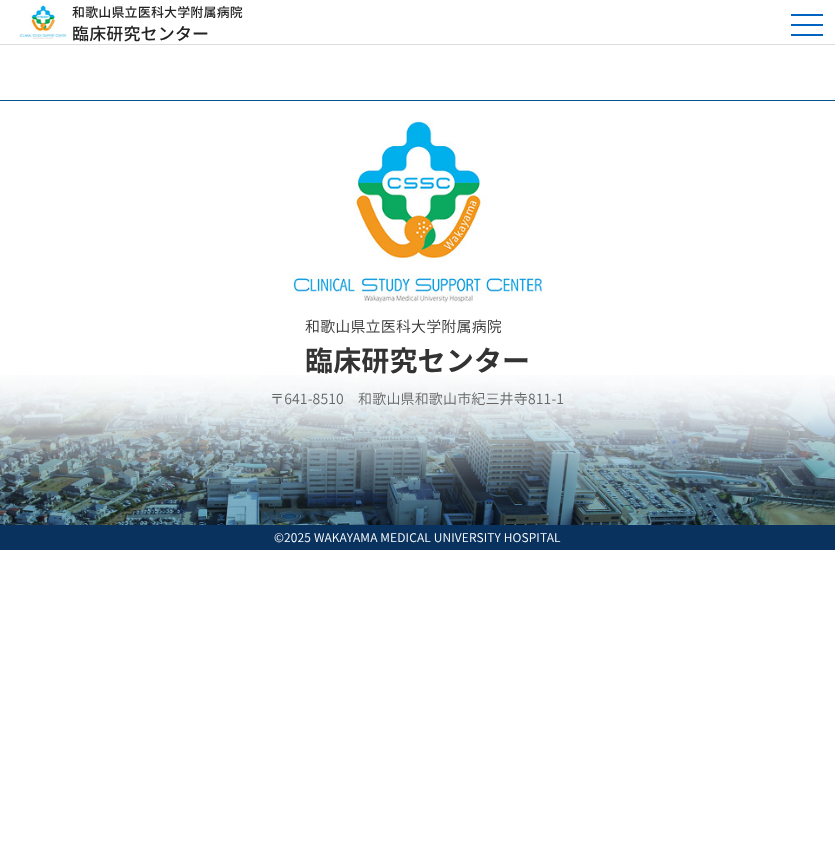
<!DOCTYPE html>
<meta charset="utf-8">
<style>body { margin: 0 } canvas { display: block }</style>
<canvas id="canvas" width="835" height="856"></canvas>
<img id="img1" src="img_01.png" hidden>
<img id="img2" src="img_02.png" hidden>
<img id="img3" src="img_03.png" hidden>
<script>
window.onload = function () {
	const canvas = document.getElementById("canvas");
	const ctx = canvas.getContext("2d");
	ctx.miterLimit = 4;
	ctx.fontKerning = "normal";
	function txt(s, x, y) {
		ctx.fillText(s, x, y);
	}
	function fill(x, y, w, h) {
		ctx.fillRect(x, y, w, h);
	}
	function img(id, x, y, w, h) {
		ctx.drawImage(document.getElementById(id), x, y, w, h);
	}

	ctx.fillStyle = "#FFFFFF";
	fill(0, 0, 835, 856);
	ctx.fillStyle = "#DDDDDD";
	fill(0, 44, 835, 1);
	img("img1", 19, 3, 48, 36);
	ctx.fillStyle = "#0062C1";
	fill(791, 24, 32, 2);
	fill(791, 14, 32, 2);
	fill(791, 34, 32, 2);
	img("img2", 0, 375, 835, 150);
	ctx.fillStyle = "#005491";
	fill(0, 100, 835, 1);
	img("img3", 293, 121, 250, 182);
	ctx.fillStyle = "#09325E";
	fill(0, 525, 835, 25);
	ctx.letterSpacing = "0.15px";
	ctx.font = "500 13px Noto Sans JP";
	ctx.fillStyle = "#222222";
	txt("和歌山県立医科大学附属病院", 72, 17);
	ctx.font = "500 17px Noto Sans JP";
	txt("臨床研究センター", 72, 40);
	ctx.font = "300 15px Noto Sans JP";
	ctx.fillStyle = "#333333";
	txt("和歌山県立医科大学附属病院", 305, 332);
	ctx.font = "bold 28px Noto Sans JP";
	txt("臨床研究センター", 305, 371);
	ctx.font = "300 14px Noto Sans JP";
	ctx.fillStyle = "#666666";
	txt("〒641-8510　和歌山県和歌山市紀三井寺811-1", 270, 404);
	ctx.font = "300 12px Noto Sans JP";
	ctx.fillStyle = "#FFFFFF";
	txt("©2025 WAKAYAMA MEDICAL UNIVERSITY HOSPITAL", 274, 542);
};
</script>
